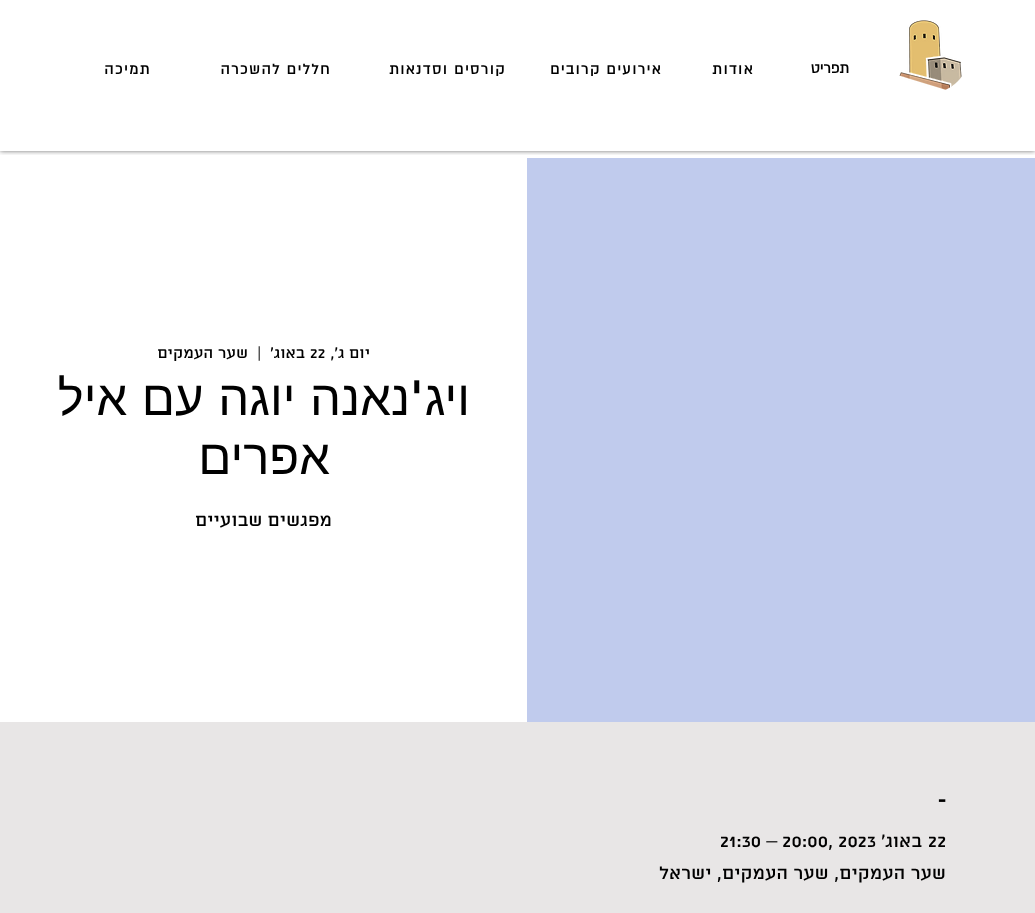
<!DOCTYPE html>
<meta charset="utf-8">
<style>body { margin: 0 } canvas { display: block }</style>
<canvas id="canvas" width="1035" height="913"></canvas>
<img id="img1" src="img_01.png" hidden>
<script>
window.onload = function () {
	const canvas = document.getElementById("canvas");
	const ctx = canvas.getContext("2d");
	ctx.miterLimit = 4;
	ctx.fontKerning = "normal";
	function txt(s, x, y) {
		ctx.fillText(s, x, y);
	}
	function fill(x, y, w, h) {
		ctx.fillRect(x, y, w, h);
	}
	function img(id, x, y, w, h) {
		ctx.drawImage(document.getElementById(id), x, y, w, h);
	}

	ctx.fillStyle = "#FFFFFF";
	fill(0, 0, 1035, 913);
	ctx.save();
	ctx.beginPath();
	ctx.rect(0, 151, 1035, 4);
	ctx.clip();
	ctx.fillStyle = "rgba(0, 0, 0, 0.56)";
	ctx.filter = "blur(2.5px)";
	ctx.beginPath();
	ctx.rect(0, 0, 1035, 151);
	ctx.fill();
	ctx.filter = "none";
	ctx.restore();
	img("img1", 899, 20, 63, 70);
	ctx.fillStyle = "#C0CBED";
	fill(527, 158, 508, 564);
	ctx.fillStyle = "#E8E6E6";
	fill(0, 722, 1035, 191);
	ctx.direction = "rtl";
	ctx.font = "bold 16px 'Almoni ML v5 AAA'";
	ctx.fillStyle = "#000000";
	txt("תפריט", 849, 73);
	ctx.letterSpacing = "1.6px";
	txt("אודות", 754, 74);
	txt("אירועים קרובים", 662, 74);
	txt("קורסים וסדנאות", 506, 74);
	txt("חללים להשכרה", 331, 74);
	txt("תמיכה", 151, 74);
	ctx.letterSpacing = "0px";
	ctx.font = "500 17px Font";
	txt("יום ג׳,", 370, 358);
	ctx.direction = "ltr";
	txt("22", 310, 358);
	ctx.direction = "rtl";
	txt("באוג׳", 305, 358);
	ctx.direction = "ltr";
	txt("|", 257, 358);
	ctx.direction = "rtl";
	txt("שער העמקים", 248, 358);
	ctx.font = "49px Liberation Sans";
	txt("ויג", 470, 415);
	ctx.font = "900 49px 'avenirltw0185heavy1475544'";
	txt("'", 424, 415);
	ctx.wordSpacing = "1px";
	ctx.font = "49px Liberation Sans";
	txt("נאנה יוגה עם איל", 410, 415);
	ctx.wordSpacing = "0px";
	txt("אפרים", 330, 474);
	ctx.font = "500 20px Font";
	txt("מפגשים שבועיים", 332, 526);
	ctx.direction = "ltr";
	ctx.font = "900 26px 'avenirltw0185heavy1475544'";
	txt("-", 938, 807);
	ctx.font = "500 20px Font";
	txt("22", 928, 847);
	ctx.direction = "rtl";
	txt("באוג׳", 922, 847);
	ctx.direction = "ltr";
	txt("21:30 – 20:00, 2023", 720, 847);
	ctx.direction = "rtl";
	txt("שער העמקים, שער העמקים, ישראל", 946, 879);
};
</script>
